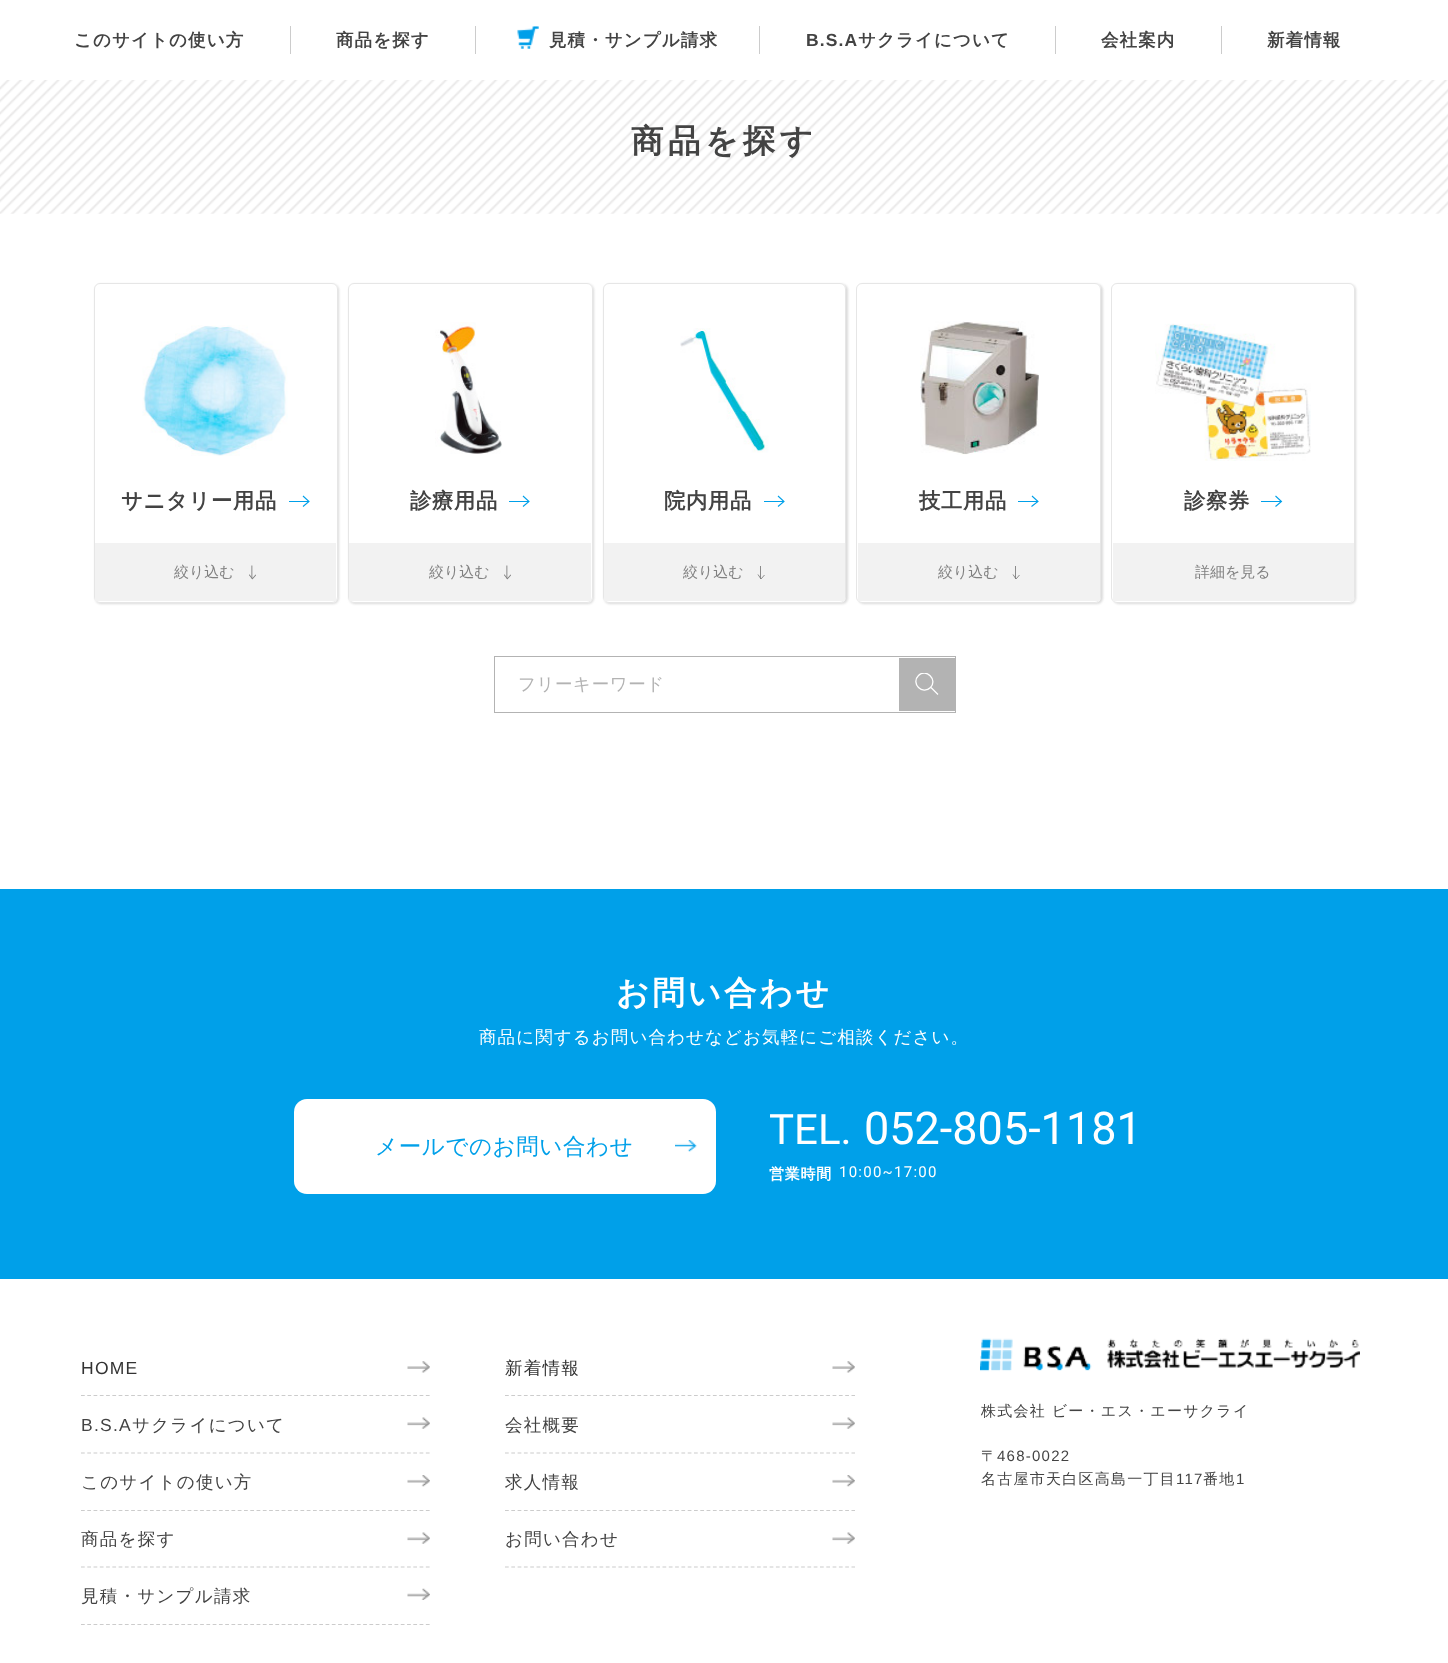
<!DOCTYPE html>
<meta charset="utf-8">
<style>body { margin: 0 } canvas { display: block }</style>
<canvas id="canvas" width="1448" height="1663"></canvas>
<img id="img1" src="img_02.png" hidden>
<img id="img2" src="img_01.png" hidden>
<img id="img3" src="img_03.png" hidden>
<img id="img4" src="img_04.png" hidden>
<img id="img5" src="img_05.png" hidden>
<img id="img6" src="img_06.png" hidden>
<img id="img7" src="img_07.png" hidden>
<img id="img8" src="img_08.png" hidden>
<img id="img9" src="img_09.png" hidden>
<img id="img10" src="img_10.png" hidden>
<img id="img11" src="img_11.png" hidden>
<img id="img12" src="img_12.png" hidden>
<img id="img13" src="img_13.png" hidden>
<img id="img14" src="img_14.png" hidden>
<script>
window.onload = function () {
	const canvas = document.getElementById("canvas");
	const ctx = canvas.getContext("2d");
	ctx.miterLimit = 4;
	ctx.fontKerning = "normal";
	function txt(s, x, y) {
		ctx.fillText(s, x, y);
	}
	function fill(x, y, w, h) {
		ctx.fillRect(x, y, w, h);
	}
	function round(x, y, w, h, r) {
		ctx.beginPath();
		ctx.roundRect(x, y, w, h, r);
		ctx.fill();
	}
	function img(id, x, y, w, h) {
		ctx.drawImage(document.getElementById(id), x, y, w, h);
	}

	ctx.fillStyle = "#FFFFFF";
	fill(0, 0, 1448, 1663);
	img("img1", 0, 80, 1448, 134);
	ctx.fillStyle = "#666666";
	ctx.filter = "blur(0.5px)";
	ctx.beginPath();
	ctx.rect(0, 0, 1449, 80);
	ctx.fill();
	ctx.filter = "none";
	ctx.fillStyle = "#FFFFFF";
	fill(0, 0, 1448, 80);
	ctx.fillStyle = "#CCCCCC";
	fill(290, 26, 1, 28);
	fill(475, 26, 1, 28);
	fill(759, 26, 1, 28);
	img("img2", 517, 26, 22, 23);
	fill(1055, 26, 1, 28);
	fill(1221, 26, 1, 28);
	ctx.fillStyle = "#DBDBDB";
	ctx.filter = "blur(1px)";
	ctx.beginPath();
	ctx.roundRect(95, 284, 244, 320, 6);
	ctx.fill();
	ctx.filter = "none";
	ctx.fillStyle = "#FFFFFF";
	round(94, 283, 244, 320, 6);
	img("img3", 142, 325, 146, 131);
	ctx.beginPath();
	ctx.roundRect(94.5, 283.5, 243, 319, 5.5);
	ctx.strokeStyle = "#E6E6E6";
	ctx.stroke();
	ctx.fillStyle = "#00A0E9";
	fill(289, 501, 19, 1);
	ctx.beginPath();
	ctx.moveTo(303, 496);
	ctx.lineTo(309, 501.5);
	ctx.lineTo(303, 506.5);
	ctx.strokeStyle = "#00A0E9";
	ctx.lineWidth = 1.1;
	ctx.stroke();
	ctx.fillStyle = "#F2F2F2";
	fill(95, 543, 241, 58);
	img("img4", 249, 565, 7, 15);
	ctx.fillStyle = "#DBDBDB";
	ctx.filter = "blur(1px)";
	ctx.beginPath();
	ctx.roundRect(349, 284, 245, 320, 6);
	ctx.fill();
	ctx.filter = "none";
	ctx.fillStyle = "#FFFFFF";
	round(348, 283, 245, 320, 6);
	img("img5", 435, 322, 67, 132);
	ctx.beginPath();
	ctx.roundRect(348.5, 283.5, 244, 319, 5.5);
	ctx.strokeStyle = "#E6E6E6";
	ctx.lineWidth = 1;
	ctx.stroke();
	ctx.fillStyle = "#00A0E9";
	fill(509, 501, 19, 1);
	ctx.beginPath();
	ctx.moveTo(523, 496);
	ctx.lineTo(529, 501.5);
	ctx.lineTo(523, 506.5);
	ctx.strokeStyle = "#00A0E9";
	ctx.lineWidth = 1.1;
	ctx.stroke();
	ctx.fillStyle = "#F2F2F2";
	fill(349, 543, 242, 58);
	img("img4", 504, 565, 7, 15);
	ctx.fillStyle = "#DBDBDB";
	ctx.filter = "blur(1px)";
	ctx.beginPath();
	ctx.roundRect(604, 284, 244, 320, 6);
	ctx.fill();
	ctx.filter = "none";
	ctx.fillStyle = "#FFFFFF";
	round(603, 283, 243, 320, 6);
	img("img6", 680, 328, 89, 125);
	ctx.beginPath();
	ctx.roundRect(603.5, 283.5, 242, 319, 5.5);
	ctx.strokeStyle = "#E6E6E6";
	ctx.lineWidth = 1;
	ctx.stroke();
	ctx.fillStyle = "#00A0E9";
	fill(764, 501, 19, 1);
	ctx.beginPath();
	ctx.moveTo(778, 496);
	ctx.lineTo(784, 501.5);
	ctx.lineTo(778, 506.5);
	ctx.strokeStyle = "#00A0E9";
	ctx.lineWidth = 1.1;
	ctx.stroke();
	ctx.fillStyle = "#F2F2F2";
	fill(604, 543, 241, 58);
	ctx.fillStyle = "#8B8B8B";
	fill(760, 566, 1, 13);
	ctx.beginPath();
	ctx.moveTo(764.5, 575);
	ctx.lineTo(761, 579);
	ctx.lineTo(758, 574.5);
	ctx.strokeStyle = "#808080";
	ctx.lineWidth = 0.9;
	ctx.stroke();
	ctx.fillStyle = "#DBDBDB";
	ctx.filter = "blur(1px)";
	ctx.beginPath();
	ctx.roundRect(858, 284, 245, 320, 6);
	ctx.fill();
	ctx.filter = "none";
	ctx.fillStyle = "#FFFFFF";
	round(856, 283, 245, 320, 6);
	img("img7", 920, 321, 119, 134);
	ctx.beginPath();
	ctx.roundRect(856.5, 283.5, 244, 319, 5.5);
	ctx.strokeStyle = "#E6E6E6";
	ctx.lineWidth = 1;
	ctx.stroke();
	ctx.fillStyle = "#00A0E9";
	fill(1018, 501, 19, 1);
	ctx.beginPath();
	ctx.moveTo(1032, 496);
	ctx.lineTo(1038, 501.5);
	ctx.lineTo(1031.5, 506.5);
	ctx.strokeStyle = "#00A0E9";
	ctx.lineWidth = 1.1;
	ctx.stroke();
	ctx.fillStyle = "#F2F2F2";
	fill(858, 543, 242, 58);
	ctx.fillStyle = "#8B8B8B";
	fill(1015, 566, 1, 13);
	ctx.beginPath();
	ctx.moveTo(1019.5, 575);
	ctx.lineTo(1016, 579);
	ctx.lineTo(1013, 574.5);
	ctx.strokeStyle = "#808080";
	ctx.lineWidth = 0.9;
	ctx.stroke();
	ctx.fillStyle = "#DBDBDB";
	ctx.filter = "blur(1px)";
	ctx.beginPath();
	ctx.roundRect(1113, 284, 243, 320, 6);
	ctx.fill();
	ctx.filter = "none";
	ctx.fillStyle = "#FFFFFF";
	round(1111, 283, 244, 320, 6);
	img("img8", 1155, 323, 156, 138);
	ctx.beginPath();
	ctx.roundRect(1111.5, 283.5, 243, 319, 5.5);
	ctx.strokeStyle = "#E6E6E6";
	ctx.lineWidth = 1;
	ctx.stroke();
	ctx.fillStyle = "#00A0E9";
	fill(1261, 501, 20, 1);
	ctx.beginPath();
	ctx.moveTo(1275.5, 496);
	ctx.lineTo(1281.5, 501.5);
	ctx.lineTo(1275.5, 506.5);
	ctx.strokeStyle = "#00A0E9";
	ctx.lineWidth = 1.1;
	ctx.stroke();
	ctx.fillStyle = "#F2F2F2";
	fill(1113, 543, 241, 58);
	ctx.strokeStyle = "#B3B3B3";
	ctx.lineWidth = 1;
	ctx.strokeRect(494.5, 656.5, 461, 56);
	ctx.fillStyle = "#B3B3B3";
	fill(899, 658, 56, 53);
	ctx.save();
	ctx.beginPath();
	ctx.rect(915, 673, 24, 22);
	ctx.clip();
	ctx.beginPath();
	ctx.moveTo(918.5, 675.5);
	ctx.bezierCurveTo(926, 668, 938, 679.5, 930.5, 687.5);
	ctx.bezierCurveTo(922.5, 695.5, 910.5, 683.5, 918.5, 675.5);
	ctx.closePath();
	ctx.strokeStyle = "#FFFFFF";
	ctx.lineWidth = 1.3;
	ctx.stroke();
	ctx.restore();
	ctx.beginPath();
	ctx.moveTo(931, 687.5);
	ctx.lineTo(938, 694.5);
	ctx.strokeStyle = "#FFFFFF";
	ctx.lineWidth = 1.3;
	ctx.stroke();
	ctx.fillStyle = "#00A0E9";
	fill(0, 889, 1448, 390);
	ctx.fillStyle = "#FFFFFF";
	round(294, 1099, 422, 95, 13);
	img("img9", 675, 1140, 22, 12);
	ctx.beginPath();
	ctx.moveTo(81, 1395.5);
	ctx.lineTo(430, 1395.5);
	ctx.strokeStyle = "#CCCCCC";
	ctx.lineWidth = 1.2;
	ctx.setLineDash([3.75, 2.52]);
	ctx.stroke();
	img("img10", 407, 1361, 23, 12);
	ctx.beginPath();
	ctx.moveTo(81, 1453);
	ctx.lineTo(430, 1453);
	ctx.stroke();
	img("img11", 407, 1417, 23, 12);
	ctx.beginPath();
	ctx.moveTo(81, 1510.5);
	ctx.lineTo(430, 1510.5);
	ctx.stroke();
	img("img12", 407, 1475, 23, 12);
	ctx.beginPath();
	ctx.moveTo(81, 1567);
	ctx.lineTo(430, 1567);
	ctx.stroke();
	img("img11", 407, 1532, 23, 12);
	ctx.beginPath();
	ctx.moveTo(81, 1624.5);
	ctx.lineTo(430, 1624.5);
	ctx.stroke();
	img("img13", 407, 1588, 23, 12);
	ctx.beginPath();
	ctx.moveTo(505, 1395.5);
	ctx.lineTo(855, 1395.5);
	ctx.setLineDash([3.75, 2.55]);
	ctx.stroke();
	img("img10", 832, 1361, 23, 12);
	ctx.beginPath();
	ctx.moveTo(505, 1453);
	ctx.lineTo(855, 1453);
	ctx.stroke();
	img("img11", 832, 1417, 23, 12);
	ctx.beginPath();
	ctx.moveTo(505, 1510.5);
	ctx.lineTo(855, 1510.5);
	ctx.stroke();
	img("img12", 832, 1475, 23, 12);
	ctx.beginPath();
	ctx.moveTo(505, 1567);
	ctx.lineTo(855, 1567);
	ctx.stroke();
	img("img11", 832, 1532, 23, 12);
	img("img14", 980, 1338, 380, 34);
	ctx.letterSpacing = "1.1px";
	ctx.font = "bold 17.5px WenQuanYi Zen Hei";
	ctx.fillStyle = "#434343";
	txt("このサイトの使い方", 74, 46);
	txt("商品を探す", 336, 46);
	txt("見積・サンプル請求", 549, 46);
	ctx.font = "bold 17.5px Liberation Sans";
	txt("B.S.A", 806, 46);
	ctx.font = "bold 17.5px WenQuanYi Zen Hei";
	txt("サクライについて", 858, 46);
	txt("会社案内", 1101, 46);
	txt("新着情報", 1267, 46);
	ctx.letterSpacing = "4.5px";
	ctx.font = "bold 32.5px WenQuanYi Zen Hei";
	txt("商品を探す", 631, 152);
	ctx.letterSpacing = "0.75px";
	ctx.font = "bold 21.25px WenQuanYi Zen Hei";
	txt("サニタリー用品", 121, 508);
	ctx.letterSpacing = "0px";
	ctx.font = "500 15px WenQuanYi Zen Hei";
	ctx.fillStyle = "#808080";
	txt("絞り込む", 174, 577);
	ctx.letterSpacing = "0.75px";
	ctx.font = "bold 21.25px WenQuanYi Zen Hei";
	ctx.fillStyle = "#434343";
	txt("診療用品", 410, 508);
	ctx.letterSpacing = "0px";
	ctx.font = "500 15px WenQuanYi Zen Hei";
	ctx.fillStyle = "#808080";
	txt("絞り込む", 429, 577);
	ctx.letterSpacing = "0.75px";
	ctx.font = "bold 21.25px WenQuanYi Zen Hei";
	ctx.fillStyle = "#434343";
	txt("院内用品", 664, 508);
	ctx.letterSpacing = "0px";
	ctx.font = "500 15px WenQuanYi Zen Hei";
	ctx.fillStyle = "#808080";
	txt("絞り込む", 683, 577);
	ctx.letterSpacing = "0.75px";
	ctx.font = "bold 21.25px WenQuanYi Zen Hei";
	ctx.fillStyle = "#434343";
	txt("技工用品", 919, 508);
	ctx.letterSpacing = "0px";
	ctx.font = "500 15px WenQuanYi Zen Hei";
	ctx.fillStyle = "#808080";
	txt("絞り込む", 938, 577);
	ctx.letterSpacing = "0.75px";
	ctx.font = "bold 21.25px WenQuanYi Zen Hei";
	ctx.fillStyle = "#434343";
	txt("診察券", 1184, 508);
	ctx.letterSpacing = "0px";
	ctx.font = "500 15px WenQuanYi Zen Hei";
	ctx.fillStyle = "#808080";
	txt("詳細を見る", 1195, 577);
	ctx.letterSpacing = "0.6px";
	ctx.font = "500 17.5px WenQuanYi Zen Hei";
	ctx.fillStyle = "#B3B3B3";
	txt("フリーキーワード", 518, 690);
	ctx.letterSpacing = "3px";
	ctx.font = "bold 32.5px WenQuanYi Zen Hei";
	ctx.fillStyle = "#FFFFFF";
	txt("お問い合わせ", 616, 1004);
	ctx.letterSpacing = "1.1px";
	ctx.font = "500 17.5px WenQuanYi Zen Hei";
	txt("商品に関するお問い合わせなどお気軽にご相談ください。", 479, 1043);
	ctx.letterSpacing = "0.6px";
	ctx.font = "500 22.5px WenQuanYi Zen Hei";
	ctx.fillStyle = "#00A0E9";
	txt("メールでのお問い合わせ", 375, 1154);
	ctx.letterSpacing = "0px";
	ctx.font = "42px Roboto";
	ctx.fillStyle = "#FFFFFF";
	txt("TEL.", 769, 1144);
	ctx.font = "45px Roboto";
	txt("052-805-1181", 864, 1144);
	ctx.letterSpacing = "0.75px";
	ctx.font = "bold 15px WenQuanYi Zen Hei";
	txt("営業時間", 769, 1179);
	ctx.letterSpacing = "1.25px";
	ctx.font = "15px Roboto";
	txt("10:00~17:00", 839, 1177);
	ctx.font = "17.5px Liberation Sans";
	ctx.fillStyle = "#333333";
	txt("HOME", 81, 1374);
	ctx.fillStyle = "#434343";
	txt("B.S.A", 81, 1431);
	ctx.font = "500 17.5px WenQuanYi Zen Hei";
	txt("サクライについて", 132, 1431);
	txt("このサイトの使い方", 81, 1488);
	txt("商品を探す", 81, 1545);
	txt("見積・サンプル請求", 81, 1602);
	ctx.fillStyle = "#333333";
	txt("新着情報", 505, 1374);
	ctx.fillStyle = "#434343";
	txt("会社概要", 505, 1431);
	txt("求人情報", 505, 1488);
	txt("お問い合わせ", 505, 1545);
	ctx.font = "500 15px WenQuanYi Zen Hei";
	txt("株式会社 ビー・エス・エーサクライ", 981, 1416);
	txt("〒", 981, 1461);
	ctx.font = "15px Liberation Sans";
	txt("468-0022", 997, 1461);
	ctx.font = "500 15px WenQuanYi Zen Hei";
	txt("名古屋市天白区高島一丁目", 981, 1484);
	ctx.font = "15px Liberation Sans";
	txt("117", 1176, 1484);
	ctx.font = "500 15px WenQuanYi Zen Hei";
	txt("番地", 1203, 1484);
	ctx.font = "15px Liberation Sans";
	txt("1", 1236, 1484);
};
</script>
